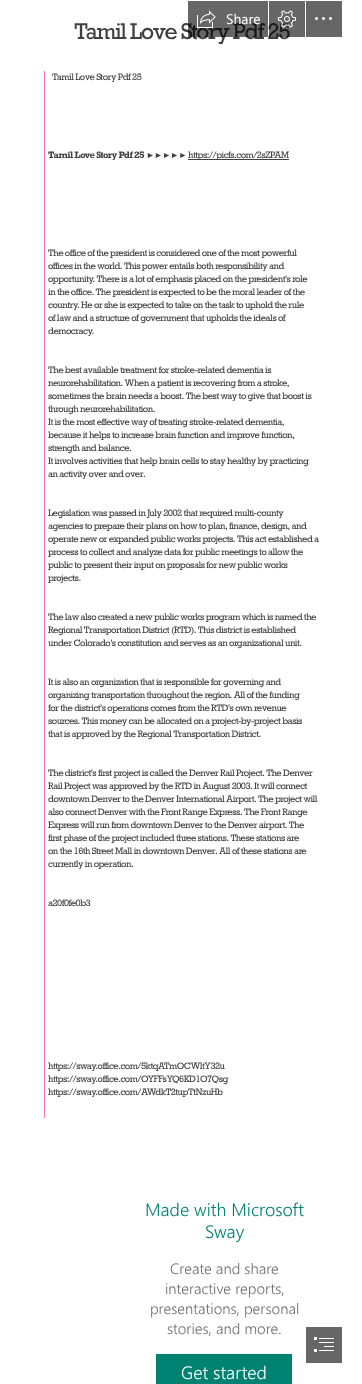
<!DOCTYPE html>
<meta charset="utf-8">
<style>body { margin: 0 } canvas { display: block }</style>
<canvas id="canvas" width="362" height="1384"></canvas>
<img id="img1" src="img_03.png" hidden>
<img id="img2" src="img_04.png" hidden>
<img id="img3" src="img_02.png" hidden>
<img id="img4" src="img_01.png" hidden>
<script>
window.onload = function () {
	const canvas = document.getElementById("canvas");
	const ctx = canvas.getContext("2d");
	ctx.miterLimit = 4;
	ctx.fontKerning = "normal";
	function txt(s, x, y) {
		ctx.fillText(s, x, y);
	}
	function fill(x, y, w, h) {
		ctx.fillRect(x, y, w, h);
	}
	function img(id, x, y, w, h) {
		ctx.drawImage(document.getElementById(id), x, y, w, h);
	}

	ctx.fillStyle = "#FFFFFF";
	fill(0, 0, 362, 1384);
	ctx.fillStyle = "#666666";
	fill(306, 1, 36, 36);
	img("img1", 315, 17, 17, 3);
	ctx.fillStyle = "#F779B7";
	fill(44, 71, 1, 1047);
	ctx.fillStyle = "#403F41";
	fill(188, 159, 101, 1);
	ctx.fillStyle = "#008272";
	fill(156, 1354, 136, 30);
	ctx.fillStyle = "#666666";
	fill(306, 1327, 36, 36);
	img("img2", 314, 1337, 20, 15);
	ctx.letterSpacing = "-1.4px";
	ctx.font = "21.25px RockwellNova";
	ctx.fillStyle = "#403F41";
	txt("Tamil Love Story Pdf 25", 74, 39);
	ctx.fillStyle = "rgba(0, 0, 0, 0.6)";
	fill(269, 1, 36, 36);
	img("img3", 278, 10, 18, 18);
	fill(188, 1, 80, 36);
	img("img4", 197, 10, 19, 18);
	ctx.letterSpacing = "0px";
	ctx.font = "14px Segoe UI";
	ctx.fillStyle = "#FFFFFF";
	txt("Share", 226, 24);
	ctx.letterSpacing = "-0.55px";
	ctx.font = "8.75px RockwellNova";
	ctx.fillStyle = "#403F41";
	txt("Tamil Love Story Pdf 25", 52, 80);
	ctx.font = "bold 8.75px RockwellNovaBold";
	txt("Tamil Love Story Pdf 25", 48, 158);
	ctx.font = "8.75px Liberation Serif";
	txt("►►►►►", 146, 158);
	ctx.font = "8.75px RockwellNova";
	txt("https://picfs.com/2sZPAM", 188, 158);
	txt("The office of the president is considered one of the most powerful", 48, 256);
	txt("offices in the world. This power entails both responsibility and", 48, 269);
	txt("opportunity. There is a lot of emphasis placed on the president's role", 48, 282);
	txt("in the office. The president is expected to be the moral leader of the", 48, 295);
	txt("country. He or she is expected to take on the task to uphold the rule", 48, 308);
	txt("of law and a structure of government that upholds the ideals of", 48, 321);
	txt("democracy.", 48, 334);
	txt("The best available treatment for stroke-related dementia is", 48, 373);
	txt("neurorehabilitation. When a patient is recovering from a stroke,", 48, 386);
	txt("sometimes the brain needs a boost. The best way to give that boost is", 48, 399);
	txt("through neurorehabilitation.", 48, 412);
	txt("It is the most effective way of treating stroke-related dementia,", 48, 425);
	txt("because it helps to increase brain function and improve function,", 48, 438);
	txt("strength and balance.", 48, 451);
	txt("It involves activities that help brain cells to stay healthy by practicing", 48, 464);
	txt("an activity over and over.", 48, 477);
	txt("Legislation was passed in July 2002 that required multi-county", 48, 516);
	txt("agencies to prepare their plans on how to plan, finance, design, and", 48, 529);
	txt("operate new or expanded public works projects. This act established a", 48, 542);
	txt("process to collect and analyze data for public meetings to allow the", 48, 555);
	txt("public to present their input on proposals for new public works", 48, 568);
	txt("projects.", 48, 581);
	txt("The law also created a new public works program which is named the", 48, 620);
	txt("Regional Transportation District (RTD). This district is established", 48, 633);
	txt("under Colorado's constitution and serves as an organizational unit.", 48, 646);
	txt("It is also an organization that is responsible for governing and", 48, 685);
	txt("organizing transportation throughout the region. All of the funding", 48, 698);
	txt("for the district's operations comes from the RTD's own revenue", 48, 711);
	txt("sources. This money can be allocated on a project-by-project basis", 48, 724);
	txt("that is approved by the Regional Transportation District.", 48, 737);
	txt("The district's first project is called the Denver Rail Project. The Denver", 48, 776);
	txt("Rail Project was approved by the RTD in August 2003. It will connect", 48, 789);
	txt("downtown Denver to the Denver International Airport. The project will", 48, 802);
	txt("also connect Denver with the Front Range Express. The Front Range", 48, 815);
	txt("Express will run from downtown Denver to the Denver airport. The", 48, 828);
	txt("first phase of the project included three stations. These stations are", 48, 841);
	txt("on the 16th Street Mall in downtown Denver. All of these stations are", 48, 854);
	txt("currently in operation.", 48, 867);
	txt("a20f0fe0b3", 48, 906);
	txt("https://sway.office.com/5ktqATmOCWltY32u", 48, 1069);
	txt("https://sway.office.com/OYFFsYQ6KD1O7Qsg", 48, 1082);
	txt("https://sway.office.com/AWdkT2tupTtNzuHb", 48, 1095);
	ctx.letterSpacing = "0px";
	ctx.font = "300 18px Segoe UI";
	ctx.fillStyle = "#008272";
	txt("Made with Microsoft", 145, 1216);
	txt("Sway", 205, 1238);
	ctx.font = "300 15px Segoe UI";
	ctx.fillStyle = "#6E6E6E";
	txt("Create and share", 170, 1274);
	txt("interactive reports,", 165, 1294);
	txt("presentations, personal", 150, 1314);
	txt("stories, and more.", 167, 1334);
	ctx.font = "300 18px Segoe UI";
	ctx.fillStyle = "#FFFFFF";
	txt("Get started", 181, 1379);
};
</script>
